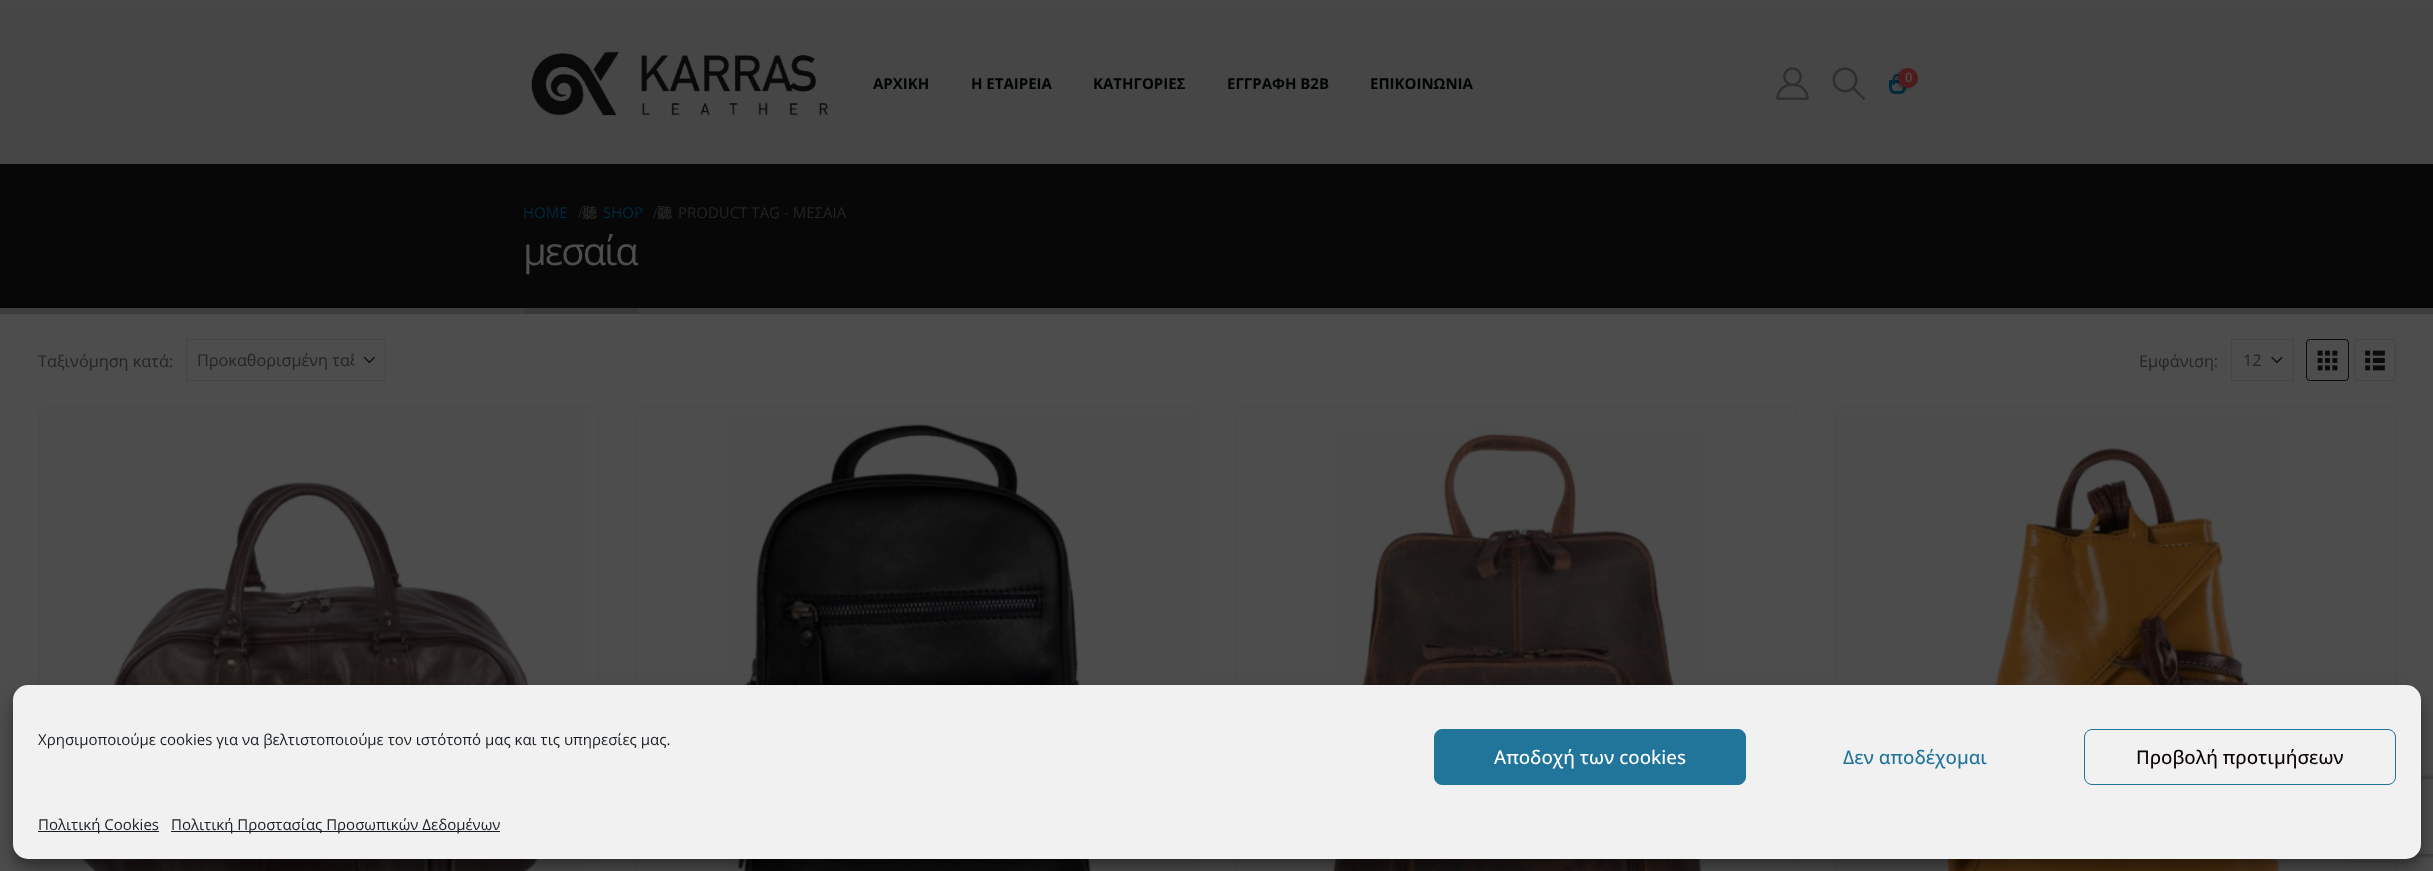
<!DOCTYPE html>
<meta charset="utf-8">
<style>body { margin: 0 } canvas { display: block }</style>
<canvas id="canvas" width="2433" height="871"></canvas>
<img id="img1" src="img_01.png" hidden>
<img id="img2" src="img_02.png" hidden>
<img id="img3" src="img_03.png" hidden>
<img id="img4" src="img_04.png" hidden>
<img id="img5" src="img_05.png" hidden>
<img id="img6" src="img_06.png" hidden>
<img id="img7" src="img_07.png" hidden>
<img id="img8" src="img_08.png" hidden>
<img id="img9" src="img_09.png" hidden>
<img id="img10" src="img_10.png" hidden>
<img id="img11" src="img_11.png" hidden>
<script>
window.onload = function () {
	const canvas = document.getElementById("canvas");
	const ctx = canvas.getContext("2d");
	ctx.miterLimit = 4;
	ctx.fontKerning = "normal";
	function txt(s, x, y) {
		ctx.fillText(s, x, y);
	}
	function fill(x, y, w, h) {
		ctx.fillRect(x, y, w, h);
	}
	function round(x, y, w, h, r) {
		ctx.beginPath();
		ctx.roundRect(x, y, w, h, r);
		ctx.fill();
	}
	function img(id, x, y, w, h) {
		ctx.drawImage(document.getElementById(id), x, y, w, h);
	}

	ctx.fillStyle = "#4D4D4D";
	fill(0, 0, 2433, 871);
	ctx.fillStyle = "#474747";
	fill(0, 0, 2433, 4);
	ctx.fillStyle = "#474646";
	fill(0, 4, 2433, 160);
	img("img1", 531, 51, 297, 65);
	img("img2", 1776, 67, 33, 33);
	img("img3", 1832, 67, 33, 33);
	ctx.beginPath();
	ctx.roundRect(1890.5, 81.5, 14, 11, [0, 0, 4.5, 4.5]);
	ctx.strokeStyle = "#00293D";
	ctx.lineWidth = 3;
	ctx.stroke();
	ctx.fillStyle = "#00293D";
	ctx.beginPath();
	ctx.moveTo(1897.5, 74);
	ctx.bezierCurveTo(1903.5, 74, 1902.5, 81, 1902.5, 85);
	ctx.lineTo(1892.5, 85);
	ctx.bezierCurveTo(1892.5, 81, 1891.5, 74, 1897.5, 74);
	ctx.closePath();
	ctx.moveTo(1897.5, 76);
	ctx.bezierCurveTo(1901, 76, 1900, 82.5, 1900, 85);
	ctx.lineTo(1895, 85);
	ctx.bezierCurveTo(1895, 82.5, 1894, 76, 1897.5, 76);
	ctx.closePath();
	ctx.fill("evenodd");
	ctx.fillStyle = "rgba(0, 0, 0, 0.3)";
	ctx.filter = "blur(1px)";
	ctx.beginPath();
	ctx.roundRect(1896, 69, 20, 20, 10);
	ctx.fill();
	ctx.filter = "none";
	ctx.fillStyle = "#4D1B1B";
	ctx.beginPath();
	ctx.arc(1908, 78, 10, 0, Math.PI * 2);
	ctx.fill();
	ctx.fillStyle = "#070707";
	fill(0, 164, 2433, 144);
	ctx.fillStyle = "#3D3D3D";
	fill(0, 308, 2433, 6);
	ctx.fillStyle = "#383838";
	fill(524, 308, 114, 6);
	img("img4", 363, 356, 12, 8);
	ctx.strokeStyle = "#454545";
	ctx.lineWidth = 1;
	ctx.strokeRect(186.5, 339.5, 199, 41);
	img("img5", 2271, 356, 12, 8);
	ctx.strokeRect(2231.5, 339.5, 62, 41);
	ctx.beginPath();
	ctx.roundRect(2306.5, 339.5, 42, 41, 3.5);
	ctx.strokeStyle = "#0A0B0C";
	ctx.stroke();
	img("img6", 2317, 350, 21, 21);
	ctx.beginPath();
	ctx.roundRect(2354.5, 339.5, 41, 41, 3.5);
	ctx.strokeStyle = "#454545";
	ctx.stroke();
	img("img7", 2365, 350, 20, 21);
	ctx.beginPath();
	ctx.roundRect(38.5, 406.5, 560, 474, 8.5);
	ctx.strokeStyle = "#494949";
	ctx.stroke();
	img("img8", 39, 408, 550, 463);
	ctx.beginPath();
	ctx.roundRect(636.5, 406.5, 562, 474, 8.5);
	ctx.stroke();
	img("img9", 727, 411, 471, 460);
	ctx.beginPath();
	ctx.roundRect(1236.5, 406.5, 561, 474, 8.5);
	ctx.stroke();
	img("img10", 1331, 426, 372, 445);
	ctx.beginPath();
	ctx.roundRect(1835.5, 406.5, 560, 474, 8.5);
	ctx.stroke();
	img("img11", 1836, 411, 447, 460);
	ctx.fillStyle = "rgba(0, 0, 0, 0.23)";
	ctx.filter = "blur(4px)";
	ctx.beginPath();
	ctx.roundRect(13, 693, 2408, 173, 15);
	ctx.fill();
	ctx.filter = "none";
	ctx.fillStyle = "rgba(0, 0, 0, 0.19)";
	ctx.filter = "blur(12.5px)";
	ctx.beginPath();
	ctx.roundRect(13, 698, 2408, 173, 15);
	ctx.fill();
	ctx.filter = "none";
	ctx.save();
	ctx.beginPath();
	ctx.moveTo(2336, 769);
	ctx.lineTo(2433, 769);
	ctx.lineTo(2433, 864);
	ctx.lineTo(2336, 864);
	ctx.closePath();
	ctx.moveTo(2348.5, 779);
	ctx.lineTo(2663.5, 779);
	ctx.bezierCurveTo(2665, 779, 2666, 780, 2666, 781.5);
	ctx.lineTo(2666, 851.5);
	ctx.bezierCurveTo(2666, 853, 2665, 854, 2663.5, 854);
	ctx.lineTo(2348.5, 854);
	ctx.bezierCurveTo(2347, 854, 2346, 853, 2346, 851.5);
	ctx.lineTo(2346, 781.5);
	ctx.bezierCurveTo(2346, 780, 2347, 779, 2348.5, 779);
	ctx.closePath();
	ctx.clip("evenodd");
	ctx.fillStyle = "#262626";
	ctx.filter = "blur(3px)";
	ctx.beginPath();
	ctx.roundRect(2346, 779, 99, 75, 2.5);
	ctx.fill();
	ctx.filter = "none";
	ctx.restore();
	ctx.fillStyle = "#F1F1F1";
	round(13, 685, 2408, 174, 15);
	ctx.fillStyle = "#21759B";
	ctx.beginPath();
	ctx.roundRect(1434.5, 729.5, 311, 55, 7.5);
	ctx.fill();
	ctx.strokeStyle = "#21759B";
	ctx.stroke();
	ctx.beginPath();
	ctx.roundRect(2084.5, 729.5, 311, 55, 7.5);
	ctx.stroke();
	ctx.fillStyle = "#191E23";
	fill(38, 831, 121, 1);
	fill(171, 831, 329, 1);
	ctx.font = "bold 15px Open Sans";
	ctx.fillStyle = "#000405";
	txt("ΑΡΧΙΚΗ", 873, 89);
	txt("Η ΕΤΑΙΡΕΙΑ", 971, 89);
	txt("ΚΑΤΗΓΟΡΙΕΣ", 1093, 89);
	txt("ΕΓΓΡΑΦΗ B2B", 1227, 89);
	txt("ΕΠΙΚΟΙΝΩΝΙΑ", 1370, 89);
	ctx.font = "600 13px Open Sans";
	ctx.fillStyle = "#4D4D4D";
	txt("0", 1905, 82);
	ctx.font = "15px Open Sans";
	ctx.fillStyle = "#00293D";
	txt("HOME", 523, 218);
	ctx.font = "bold 15px Liberation Serif";
	ctx.fillStyle = "#242424";
	txt("/", 578, 218);
	ctx.font = "bold 15px WenQuanYi Zen Hei";
	txt("聽", 582, 218);
	ctx.font = "15px Open Sans";
	ctx.fillStyle = "#00293D";
	txt("SHOP", 603, 218);
	ctx.font = "bold 15px Liberation Serif";
	ctx.fillStyle = "#242424";
	txt("/", 653, 218);
	ctx.font = "bold 15px WenQuanYi Zen Hei";
	txt("聽", 657, 218);
	ctx.font = "15px Open Sans";
	txt("PRODUCT TAG - ΜΕΣΑΙΑ", 678, 218);
	ctx.letterSpacing = "-2px";
	ctx.font = "38.5px Open Sans";
	ctx.fillStyle = "#4D4D4D";
	txt("μεσαία", 523, 265);
	ctx.letterSpacing = "0px";
	ctx.font = "16.25px Open Sans";
	ctx.fillStyle = "#242424";
	txt("Ταξινόμηση κατά:", 38, 367);
	ctx.save();
	ctx.beginPath();
	ctx.rect(198, 349, 156, 24);
	ctx.clip();
	txt("Προκαθορισμένη ταξ", 197, 366);
	ctx.restore();
	txt("Εμφάνιση:", 2139, 367);
	txt("12", 2243, 366);
	ctx.font = "15px Open Sans";
	ctx.fillStyle = "#191E23";
	txt("Χρησιμοποιούμε cookies για να βελτιστοποιούμε τον ιστότοπό μας και τις υπηρεσίες μας.", 38, 745);
	ctx.font = "500 18.75px Open Sans";
	ctx.fillStyle = "#FFFFFF";
	txt("Αποδοχή των cookies", 1494, 764);
	ctx.fillStyle = "#21759B";
	txt("Δεν αποδέχομαι", 1843, 764);
	ctx.fillStyle = "#0A0101";
	txt("Προβολή προτιμήσεων", 2136, 764);
	ctx.font = "15px Open Sans";
	ctx.fillStyle = "#191E23";
	txt("Πολιτική Cookies", 38, 830);
	txt("Πολιτική Προστασίας Προσωπικών Δεδομένων", 171, 830);
};
</script>
